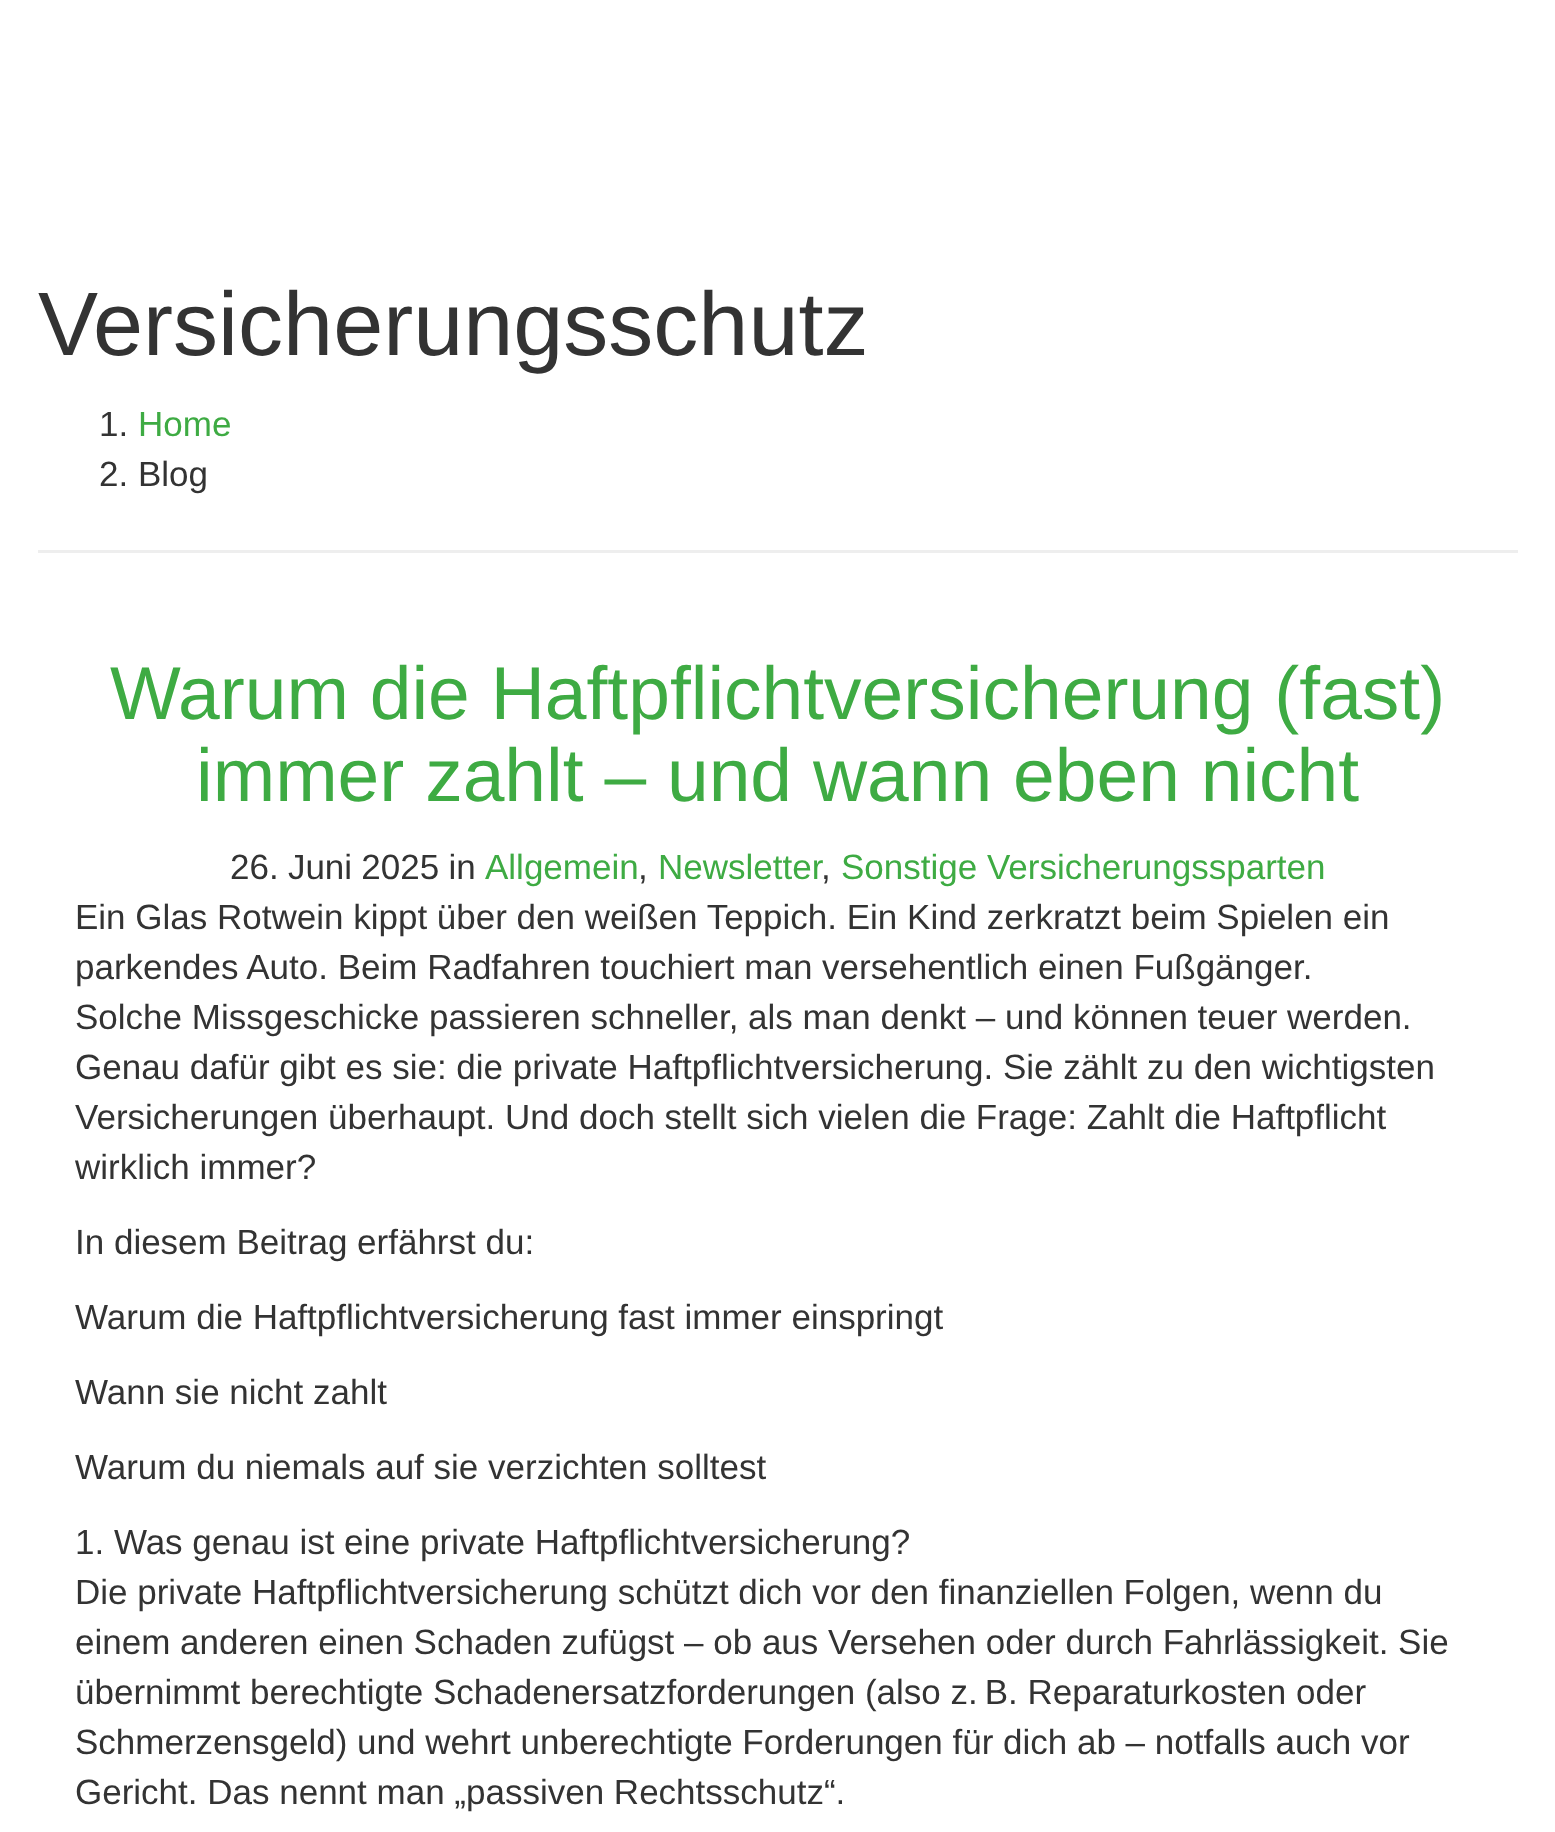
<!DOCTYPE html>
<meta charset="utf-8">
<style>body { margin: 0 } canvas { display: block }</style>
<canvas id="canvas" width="1555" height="1832"></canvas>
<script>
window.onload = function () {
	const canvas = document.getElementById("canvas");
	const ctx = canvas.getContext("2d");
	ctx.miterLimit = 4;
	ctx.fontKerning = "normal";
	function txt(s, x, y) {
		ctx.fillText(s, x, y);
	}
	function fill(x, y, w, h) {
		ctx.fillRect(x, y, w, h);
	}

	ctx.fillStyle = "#FFFFFF";
	fill(0, 0, 1555, 1832);
	ctx.fillStyle = "#EEEEEE";
	fill(38, 550, 1480, 3);
	ctx.font = "90px Liberation Sans";
	ctx.fillStyle = "#333333";
	txt("Versicherungsschutz", 38, 355);
	ctx.font = "35px Liberation Sans";
	txt("1.", 99, 436);
	ctx.fillStyle = "#3EAB43";
	txt("Home", 138, 436);
	ctx.fillStyle = "#333333";
	txt("2. Blog", 99, 486);
	ctx.font = "75px Liberation Sans";
	ctx.fillStyle = "#3EAB43";
	txt("Warum die Haftpflichtversicherung (fast)", 110, 719);
	txt("immer zahlt – und wann eben nicht", 196, 801);
	ctx.wordSpacing = "-0.5px";
	ctx.font = "35px Liberation Sans";
	ctx.fillStyle = "#333333";
	txt("26. Juni 2025 in", 230, 879);
	ctx.wordSpacing = "0px";
	ctx.fillStyle = "#3EAB43";
	txt("Allgemein", 485, 879);
	ctx.fillStyle = "#333333";
	txt(",", 638, 879);
	ctx.fillStyle = "#3EAB43";
	txt("Newsletter", 658, 879);
	ctx.fillStyle = "#333333";
	txt(",", 821, 879);
	ctx.fillStyle = "#3EAB43";
	txt("Sonstige Versicherungssparten", 841, 879);
	ctx.fillStyle = "#333333";
	txt("Ein Glas Rotwein kippt über den weißen Teppich. Ein Kind zerkratzt beim Spielen ein", 75, 929);
	txt("parkendes Auto. Beim Radfahren touchiert man versehentlich einen Fußgänger.", 75, 979);
	txt("Solche Missgeschicke passieren schneller, als man denkt – und können teuer werden.", 75, 1029);
	txt("Genau dafür gibt es sie: die private Haftpflichtversicherung. Sie zählt zu den wichtigsten", 75, 1079);
	txt("Versicherungen überhaupt. Und doch stellt sich vielen die Frage: Zahlt die Haftpflicht", 75, 1129);
	txt("wirklich immer?", 75, 1179);
	txt("In diesem Beitrag erfährst du:", 75, 1254);
	txt("Warum die Haftpflichtversicherung fast immer einspringt", 75, 1329);
	txt("Wann sie nicht zahlt", 75, 1404);
	txt("Warum du niemals auf sie verzichten solltest", 75, 1479);
	txt("1. Was genau ist eine private Haftpflichtversicherung?", 75, 1554);
	txt("Die private Haftpflichtversicherung schützt dich vor den finanziellen Folgen, wenn du", 75, 1604);
	txt("einem anderen einen Schaden zufügst – ob aus Versehen oder durch Fahrlässigkeit. Sie", 75, 1654);
	txt("übernimmt berechtigte Schadenersatzforderungen (also z. B. Reparaturkosten oder", 75, 1704);
	txt("Schmerzensgeld) und wehrt unberechtigte Forderungen für dich ab – notfalls auch vor", 75, 1754);
	txt("Gericht. Das nennt man „passiven Rechtsschutz“.", 75, 1804);
};
</script>
